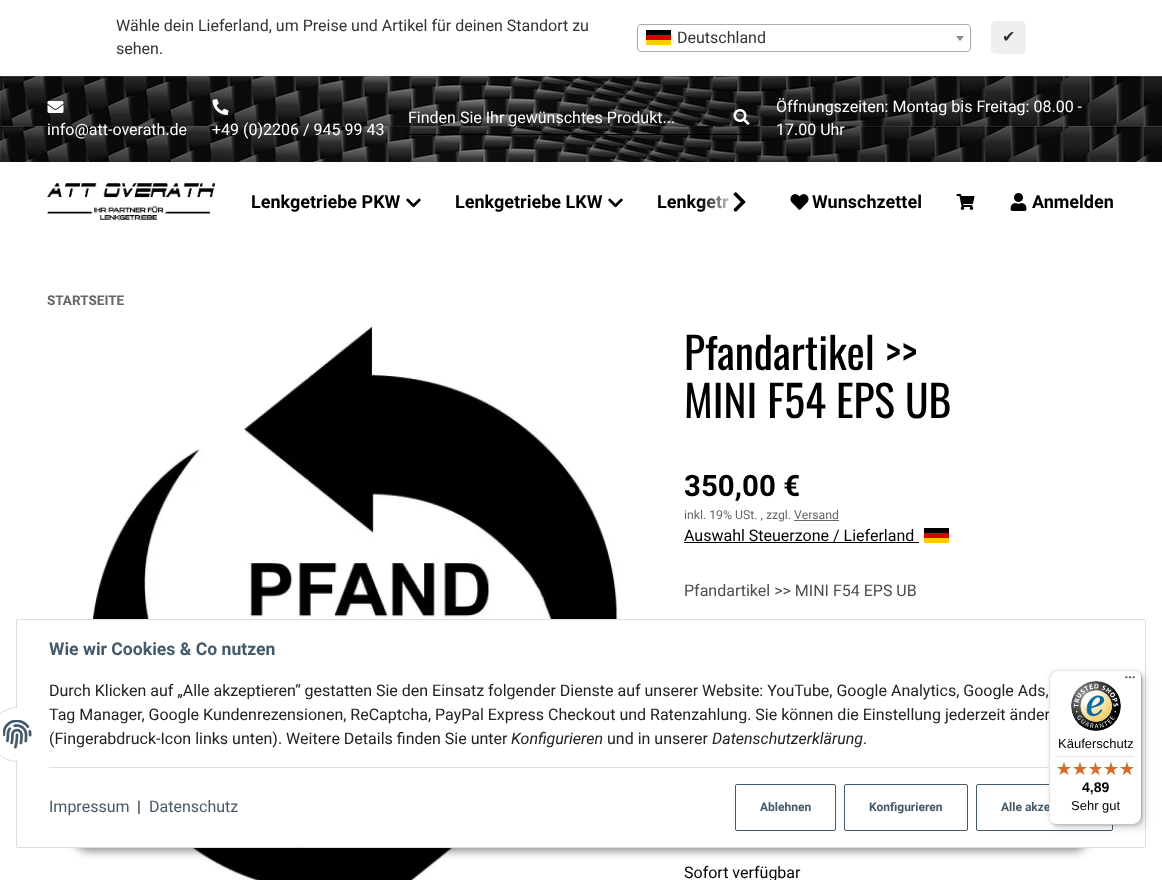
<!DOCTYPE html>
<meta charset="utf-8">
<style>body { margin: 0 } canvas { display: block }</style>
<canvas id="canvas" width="1162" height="880"></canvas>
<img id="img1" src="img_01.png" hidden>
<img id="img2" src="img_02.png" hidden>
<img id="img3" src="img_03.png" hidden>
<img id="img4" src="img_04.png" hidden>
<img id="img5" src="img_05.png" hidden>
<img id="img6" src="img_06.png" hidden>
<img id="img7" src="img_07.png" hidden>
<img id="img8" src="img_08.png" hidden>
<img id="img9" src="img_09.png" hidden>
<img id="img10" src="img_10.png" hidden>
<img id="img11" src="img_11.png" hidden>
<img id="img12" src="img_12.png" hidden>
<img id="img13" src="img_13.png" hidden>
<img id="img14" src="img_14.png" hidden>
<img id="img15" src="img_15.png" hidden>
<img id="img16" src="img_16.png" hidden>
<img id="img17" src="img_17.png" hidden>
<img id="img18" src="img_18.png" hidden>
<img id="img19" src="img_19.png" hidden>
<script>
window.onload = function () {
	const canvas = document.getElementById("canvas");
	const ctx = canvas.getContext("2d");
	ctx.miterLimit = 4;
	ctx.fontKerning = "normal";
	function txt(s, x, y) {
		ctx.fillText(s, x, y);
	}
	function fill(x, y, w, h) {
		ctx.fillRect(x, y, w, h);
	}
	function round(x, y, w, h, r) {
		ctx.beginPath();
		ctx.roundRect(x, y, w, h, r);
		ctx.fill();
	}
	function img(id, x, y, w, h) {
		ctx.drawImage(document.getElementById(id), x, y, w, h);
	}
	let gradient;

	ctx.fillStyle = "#FFFFFF";
	fill(0, 0, 1162, 880);
	ctx.beginPath();
	ctx.roundRect(637.5, 24.5, 333, 27, 3.5);
	ctx.strokeStyle = "#AAAAAA";
	ctx.stroke();
	ctx.fillStyle = "#000000";
	fill(646, 30, 25, 5);
	ctx.fillStyle = "#DD0000";
	fill(646, 35, 25, 5);
	ctx.fillStyle = "#FFCE00";
	fill(646, 40, 25, 5);
	ctx.fillStyle = "#888888";
	ctx.beginPath();
	ctx.moveTo(956, 36);
	ctx.lineTo(964, 36);
	ctx.lineTo(960, 41);
	ctx.closePath();
	ctx.fill();
	ctx.fillStyle = "#EFEFEF";
	round(991, 21, 35, 33, 5);
	img("img1", 0, 76, 1162, 86);
	ctx.fillStyle = "#000000";
	fill(406, 134, 350, 1);
	img("img2", 733, 109, 17, 16);
	img("img3", 47, 101, 17, 12);
	img("img4", 212, 99, 17, 16);
	img("img5", 47, 183, 168, 37);
	img("img6", 733, 192, 13, 20);
	img("img7", 406, 198, 15, 10);
	img("img7", 608, 198, 15, 10);
	img("img8", 790, 194, 19, 16);
	img("img9", 956, 194, 19, 16);
	img("img10", 1010, 193, 17, 18);
	img("img11", 88, 327, 531, 553);
	ctx.fillStyle = "#666666";
	fill(794, 520, 45, 1);
	ctx.fillStyle = "#000000";
	fill(684, 542, 235, 1);
	fill(924, 528, 25, 5);
	ctx.fillStyle = "#DD0000";
	fill(924, 533, 25, 5);
	ctx.fillStyle = "#FFCE00";
	fill(924, 538, 25, 5);
	ctx.fillStyle = "rgba(0, 0, 0, 0.45)";
	ctx.filter = "blur(5px)";
	ctx.beginPath();
	ctx.roundRect(73, 819, 1016, 32, 16);
	ctx.fill();
	ctx.filter = "none";
	ctx.fillStyle = "#FFFFFF";
	ctx.beginPath();
	ctx.roundRect(16.5, 619.5, 1129, 228, 1.5);
	ctx.fill();
	ctx.strokeStyle = "#DDDDDD";
	ctx.stroke();
	ctx.beginPath();
	ctx.arc(17.5, 734.5, 27, 0, Math.PI * 2);
	ctx.fill();
	ctx.stroke();
	fill(18, 707, 27, 55);
	img("img12", 3, 720, 29, 29);
	ctx.fillStyle = "#DDE1E4";
	fill(49, 767, 1000, 1);
	ctx.beginPath();
	ctx.roundRect(735.5, 784.5, 100, 46, 1.5);
	ctx.strokeStyle = "#435A6B";
	ctx.stroke();
	ctx.beginPath();
	ctx.roundRect(844.5, 784.5, 123, 46, 1.5);
	ctx.stroke();
	ctx.beginPath();
	ctx.roundRect(976.5, 784.5, 136, 46, 1.5);
	ctx.stroke();
	ctx.fillStyle = "rgba(0, 0, 0, 0.15)";
	ctx.filter = "blur(4px)";
	ctx.beginPath();
	ctx.roundRect(1052, 673, 93, 155, 8);
	ctx.fill();
	ctx.filter = "none";
	ctx.filter = "blur(1px)";
	ctx.beginPath();
	ctx.roundRect(1050, 671, 93, 155, 8);
	ctx.fill();
	ctx.filter = "none";
	ctx.font = "16px Roboto";
	ctx.fillStyle = "#333333";
	txt("Wähle dein Lieferland, um Preise und Artikel für deinen Standort zu", 116, 31);
	txt("sehen.", 116, 54);
	txt("Deutschland", 677, 43);
	ctx.font = "16px DejaVu Sans";
	txt("✔", 1002, 42);
	ctx.font = "16px Roboto";
	ctx.fillStyle = "#FFFFFF";
	txt("Finden Sie Ihr gewünschtes Produkt...", 408, 123);
	txt("Öffnungszeiten: Montag bis Freitag: 08.00 -", 776, 112);
	txt("17.00 Uhr", 776, 135);
	txt("info@att-overath.de", 47, 135);
	txt("+49 (0)2206 / 945 99 43", 212, 135);
	ctx.font = "bold 18px Roboto";
	ctx.fillStyle = "#000000";
	txt("Lenkgetriebe PKW", 251, 208);
	txt("Lenkgetriebe LKW", 455, 208);
	txt("Lenkgetr", 657, 208);
	gradient = ctx.createLinearGradient(753, 202, 701, 202);
	gradient.addColorStop(0.3, "#FFFFFF");
	gradient.addColorStop(1, "rgba(255, 255, 255, 0)");
	ctx.fillStyle = gradient;
	fill(702, 196, 27, 16);
	ctx.fillStyle = "#000000";
	txt("Wunschzettel", 812, 208);
	txt("Anmelden", 1032, 208);
	ctx.font = "bold 13.5px Roboto";
	ctx.fillStyle = "#666666";
	txt("STARTSEITE", 47, 305);
	ctx.font = "43.5px Oswald";
	ctx.fillStyle = "#000000";
	txt("Pfandartikel >>", 684, 370);
	txt("MINI F54 EPS UB", 684, 418);
	ctx.font = "bold 29.5px Roboto";
	txt("350,00 €", 684, 496);
	ctx.font = "12.25px Roboto";
	ctx.fillStyle = "#666666";
	txt("inkl. 19% USt. , zzgl. Versand", 684, 519);
	ctx.font = "16px Roboto";
	ctx.fillStyle = "#000000";
	txt("Auswahl Steuerzone / Lieferland", 684, 541);
	ctx.fillStyle = "#4D4D4D";
	txt("Pfandartikel >> MINI F54 EPS UB", 684, 596);
	ctx.fillStyle = "#000000";
	txt("Sofort verfügbar", 684, 878);
	ctx.font = "bold 17.6px Roboto";
	ctx.fillStyle = "#435A6B";
	txt("Wie wir Cookies & Co nutzen", 49, 655);
	ctx.font = "16px Roboto";
	ctx.fillStyle = "#222222";
	txt("Durch Klicken auf „Alle akzeptieren“ gestatten Sie den Einsatz folgender Dienste auf unserer Website: YouTube, Google Analytics, Google Ads,", 49, 696);
	txt("Tag Manager, Google Kundenrezensionen, ReCaptcha, PayPal Express Checkout und Ratenzahlung. Sie können die Einstellung jederzeit änder", 49, 720);
	txt("(Fingerabdruck-Icon links unten). Weitere Details finden Sie unter", 49, 744);
	ctx.font = "italic 16px Roboto";
	txt("Konfigurieren", 511, 744);
	ctx.font = "16px Roboto";
	txt("und in unserer", 607, 744);
	ctx.font = "italic 16px Roboto";
	txt("Datenschutzerklärung", 712, 744);
	ctx.font = "16px Roboto";
	txt(".", 863, 744);
	ctx.fillStyle = "#435A6B";
	txt("Impressum", 49, 812);
	ctx.fillStyle = "#222222";
	txt("|", 137, 812);
	ctx.fillStyle = "#435A6B";
	txt("Datenschutz", 149, 812);
	ctx.font = "bold 12px Roboto";
	txt("Ablehnen", 760, 811);
	txt("Konfigurieren", 869, 811);
	txt("Alle akze", 1001, 811);
	ctx.fillStyle = "#FFFFFF";
	round(1049, 670, 93, 155, 8);
	ctx.fillStyle = "#E5E5E5";
	ctx.beginPath();
	ctx.moveTo(1058, 671);
	ctx.lineTo(1135, 671);
	ctx.bezierCurveTo(1137, 671, 1139, 672, 1141, 674);
	ctx.bezierCurveTo(1139, 672, 1137, 670, 1134, 670);
	ctx.lineTo(1057, 670);
	ctx.bezierCurveTo(1053, 670, 1049, 674, 1049, 678);
	ctx.lineTo(1049, 817);
	ctx.bezierCurveTo(1049, 820, 1051, 822, 1053, 824);
	ctx.bezierCurveTo(1051, 822, 1050, 820, 1050, 818);
	ctx.lineTo(1050, 679);
	ctx.bezierCurveTo(1050, 675, 1054, 671, 1058, 671);
	ctx.closePath();
	ctx.fill();
	ctx.fillStyle = "#CCCCCC";
	ctx.beginPath();
	ctx.moveTo(1050, 821);
	ctx.bezierCurveTo(1052, 823, 1054, 825, 1057, 825);
	ctx.lineTo(1134, 825);
	ctx.bezierCurveTo(1138, 825, 1142, 821, 1142, 817);
	ctx.lineTo(1142, 678);
	ctx.bezierCurveTo(1142, 675, 1140, 673, 1138, 671);
	ctx.bezierCurveTo(1140, 673, 1141, 675, 1141, 677);
	ctx.lineTo(1141, 816);
	ctx.bezierCurveTo(1141, 820, 1137, 824, 1133, 824);
	ctx.lineTo(1056, 824);
	ctx.bezierCurveTo(1054, 824, 1052, 823, 1050, 821);
	ctx.closePath();
	ctx.fill();
	ctx.fillStyle = "rgba(50, 50, 50, 0.2)";
	ctx.beginPath();
	ctx.moveTo(1051, 822);
	ctx.bezierCurveTo(1052, 824, 1055, 825, 1057, 825);
	ctx.lineTo(1134, 825);
	ctx.bezierCurveTo(1138, 825, 1142, 821, 1142, 817);
	ctx.lineTo(1142, 678);
	ctx.bezierCurveTo(1142, 676, 1141, 673, 1139, 672);
	ctx.bezierCurveTo(1140, 673, 1141, 675, 1141, 677);
	ctx.lineTo(1141, 816);
	ctx.bezierCurveTo(1141, 821, 1138, 824, 1133, 824);
	ctx.lineTo(1056, 824);
	ctx.bezierCurveTo(1054, 824, 1052, 823, 1051, 822);
	ctx.closePath();
	ctx.fill();
	img("img13", 1125, 676, 10, 3);
	ctx.fillStyle = "rgba(255, 255, 255, 0.3)";
	ctx.beginPath();
	ctx.moveTo(1051, 822);
	ctx.bezierCurveTo(1052, 824, 1055, 825, 1057, 825);
	ctx.lineTo(1134, 825);
	ctx.bezierCurveTo(1138, 825, 1142, 821, 1142, 817);
	ctx.lineTo(1142, 816);
	ctx.bezierCurveTo(1142, 821, 1138, 824, 1134, 824);
	ctx.lineTo(1056, 824);
	ctx.bezierCurveTo(1054, 824, 1052, 823, 1051, 822);
	ctx.closePath();
	ctx.fill();
	img("img14", 1071, 681, 50, 50);
	ctx.font = "13px Liberation Sans";
	ctx.fillStyle = "#000000";
	txt("Käuferschutz", 1058, 748);
	ctx.fillStyle = "#E5E5E5";
	fill(1057, 756, 77, 1);
	img("img15", 1057, 762, 14, 13);
	img("img15", 1073, 762, 14, 13);
	img("img16", 1089, 762, 13, 13);
	img("img15", 1104, 762, 14, 13);
	img("img15", 1120, 762, 14, 13);
	img("img17", 1057, 762, 14, 13);
	img("img17", 1073, 762, 14, 13);
	img("img18", 1089, 762, 13, 13);
	img("img17", 1104, 762, 14, 13);
	img("img19", 1120, 762, 13, 13);
	ctx.font = "bold 14px Liberation Sans";
	ctx.fillStyle = "#000000";
	txt("4,89", 1082, 792);
	ctx.font = "13px Liberation Sans";
	txt("Sehr gut", 1071, 810);
};
</script>
